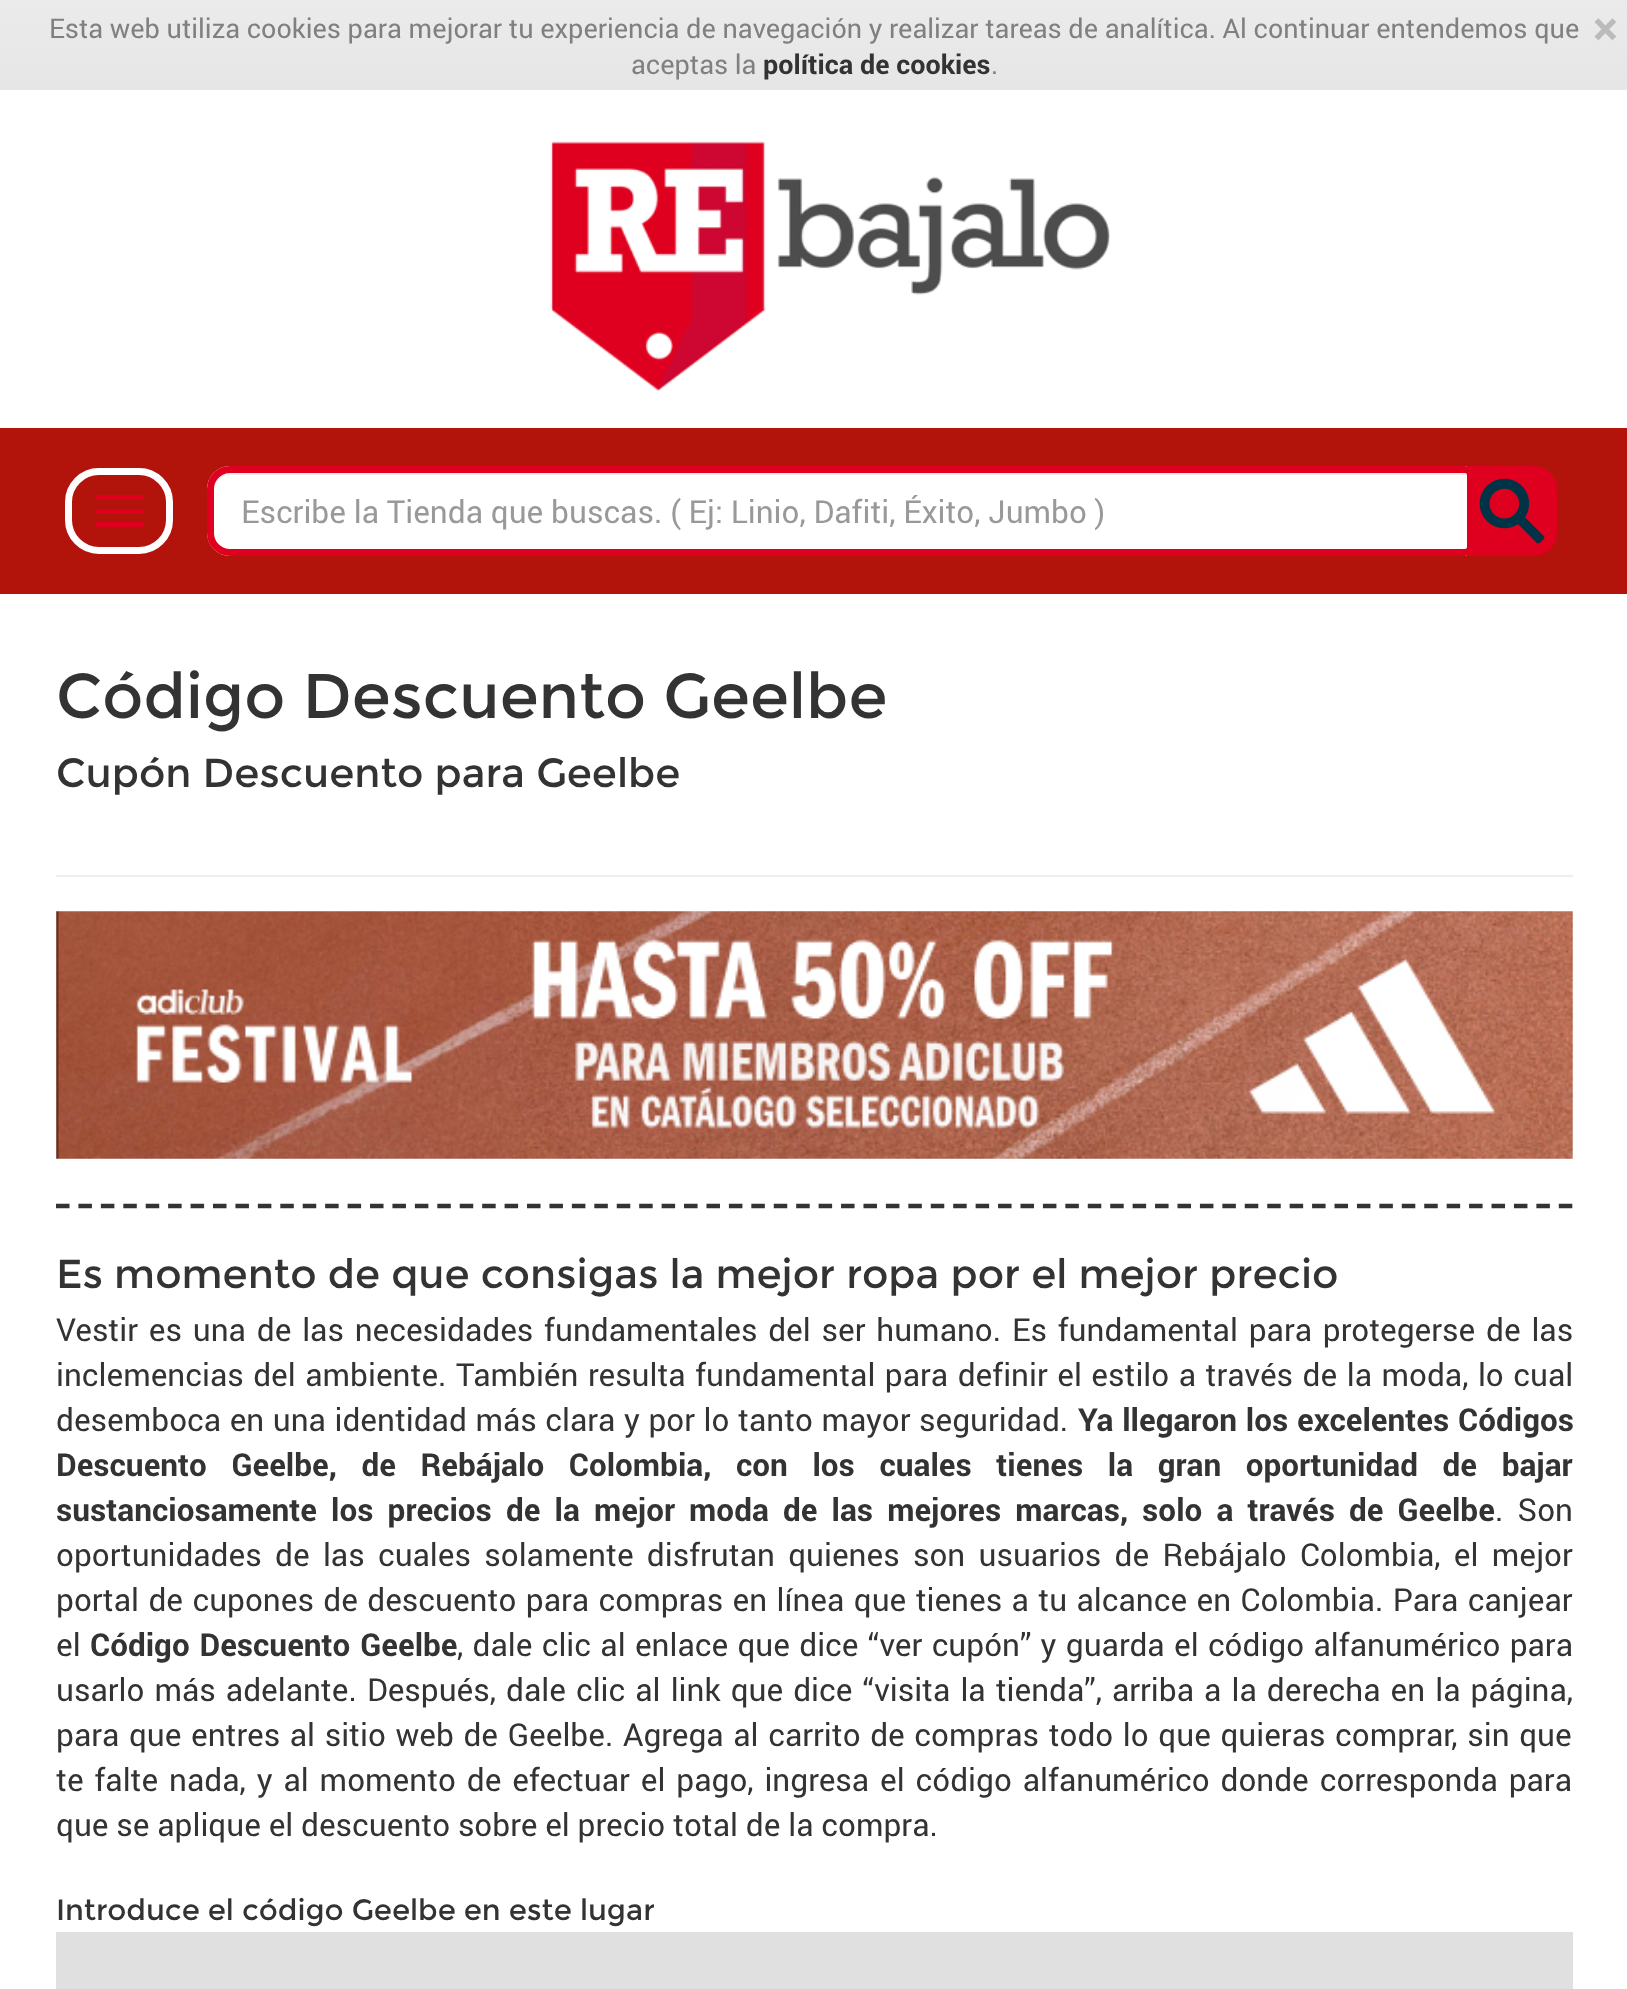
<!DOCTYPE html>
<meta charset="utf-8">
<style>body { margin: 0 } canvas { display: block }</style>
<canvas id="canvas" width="1627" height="1989"></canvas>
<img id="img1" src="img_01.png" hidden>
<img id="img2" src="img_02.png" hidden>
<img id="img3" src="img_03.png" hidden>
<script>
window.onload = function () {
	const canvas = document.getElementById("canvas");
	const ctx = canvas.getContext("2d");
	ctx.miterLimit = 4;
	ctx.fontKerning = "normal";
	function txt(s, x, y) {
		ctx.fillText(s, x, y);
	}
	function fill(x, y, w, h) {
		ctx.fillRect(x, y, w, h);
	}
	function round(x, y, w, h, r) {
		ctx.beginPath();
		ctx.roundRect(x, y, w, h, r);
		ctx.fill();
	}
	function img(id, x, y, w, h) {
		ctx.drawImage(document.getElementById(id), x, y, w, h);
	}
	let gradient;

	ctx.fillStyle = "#FFFFFF";
	fill(0, 0, 1627, 1989);
	gradient = ctx.createLinearGradient(815, 0, 815, 90);
	gradient.addColorStop(0, "#EBEBEB");
	gradient.addColorStop(1, "#E6E6E6");
	ctx.fillStyle = gradient;
	fill(0, 0, 1627, 90);
	img("img1", 550, 141, 560, 251);
	ctx.fillStyle = "#B2140B";
	fill(0, 428, 1627, 166);
	ctx.beginPath();
	ctx.roundRect(68.5, 471.5, 101, 79, 30.5);
	ctx.strokeStyle = "#FFFFFF";
	ctx.lineWidth = 7;
	ctx.stroke();
	ctx.fillStyle = "#DF001F";
	round(95, 495, 49, 5, 2.5);
	round(95, 509, 49, 5, 2.5);
	round(95, 522, 49, 5, 2.5);
	ctx.fillStyle = "#FFFFFF";
	ctx.beginPath();
	ctx.roundRect(207, 466, 1267, 90, [23, 9, 9, 23]);
	ctx.fill();
	ctx.fillStyle = "#ECECEC";
	ctx.beginPath();
	ctx.moveTo(230, 475);
	ctx.lineTo(1465, 475);
	ctx.bezierCurveTo(1466, 475, 1467, 476, 1467, 477);
	ctx.lineTo(1467, 474);
	ctx.lineTo(1465, 473);
	ctx.lineTo(230, 473);
	ctx.bezierCurveTo(221, 473, 214, 481, 214, 490);
	ctx.bezierCurveTo(214, 482, 221, 475, 230, 475);
	ctx.closePath();
	ctx.fill();
	ctx.beginPath();
	ctx.roundRect(210.5, 469.5, 1260, 83, [19.5, 5.5, 5.5, 19.5]);
	ctx.strokeStyle = "#DF001F";
	ctx.stroke();
	ctx.fillStyle = "#DF001F";
	ctx.beginPath();
	ctx.roundRect(1467, 466, 90, 90, [0, 23, 23, 0]);
	ctx.fill();
	img("img2", 1479, 478, 66, 66);
	ctx.fillStyle = "#EEEEEE";
	fill(56, 875, 1517, 2);
	img("img3", 56, 911, 1517, 248);
	ctx.beginPath();
	ctx.moveTo(56, 1206);
	ctx.lineTo(1573, 1206);
	ctx.strokeStyle = "#333333";
	ctx.lineWidth = 4.5;
	ctx.setLineDash([13.5, 8.93]);
	ctx.stroke();
	ctx.fillStyle = "#E0E0E0";
	fill(56, 1932, 1517, 57);
	ctx.font = "27px Roboto";
	ctx.fillStyle = "#808080";
	txt("Esta web utiliza cookies para mejorar tu experiencia de navegación y realizar tareas de analítica. Al continuar entendemos que", 49, 38);
	txt("aceptas la", 631, 74);
	ctx.font = "bold 27px Roboto";
	ctx.fillStyle = "#333333";
	txt("política de cookies", 763, 74);
	ctx.font = "27px Roboto";
	ctx.fillStyle = "#808080";
	txt(".", 991, 74);
	ctx.font = "bold 47px Roboto";
	ctx.fillStyle = "#BBBBBB";
	txt("×", 1593, 45);
	ctx.font = "31.5px Roboto";
	ctx.fillStyle = "#999999";
	txt("Escribe la Tienda que buscas. ( Ej: Linio, Dafiti, Éxito, Jumbo )", 241, 523);
	ctx.font = "63px Montserrat";
	ctx.fillStyle = "#333333";
	txt("Código Descuento Geelbe", 56, 718);
	ctx.font = "40.5px Montserrat";
	txt("Cupón Descuento para Geelbe", 56, 787);
	txt("Es momento de que consigas la mejor ropa por el mejor precio", 56, 1288);
	ctx.wordSpacing = "3px";
	ctx.font = "31.5px Roboto";
	txt("Vestir es una de las necesidades fundamentales del ser humano. Es fundamental para protegerse de las", 56, 1341);
	ctx.wordSpacing = "1.7px";
	txt("inclemencias del ambiente. También resulta fundamental para definir el estilo a través de la moda, lo cual", 56, 1386);
	ctx.wordSpacing = "0.75px";
	txt("desemboca en una identidad más clara y por lo tanto mayor seguridad.", 56, 1431);
	ctx.wordSpacing = "1px";
	ctx.font = "bold 31.5px Roboto";
	txt("Ya llegaron los excelentes Códigos", 1078, 1431);
	ctx.wordSpacing = "16.75px";
	txt("Descuento Geelbe, de Rebájalo Colombia, con los cuales tienes la gran oportunidad de bajar", 56, 1476);
	ctx.wordSpacing = "6.25px";
	txt("sustanciosamente los precios de la mejor moda de las mejores marcas, solo a través de Geelbe", 56, 1521);
	ctx.font = "31.5px Roboto";
	txt(". Son", 1495, 1521);
	ctx.wordSpacing = "5.5px";
	txt("oportunidades de las cuales solamente disfrutan quienes son usuarios de Rebájalo Colombia, el mejor", 56, 1566);
	ctx.wordSpacing = "1.6px";
	txt("portal de cupones de descuento para compras en línea que tienes a tu alcance en Colombia. Para canjear", 56, 1611);
	ctx.wordSpacing = "0px";
	txt("el", 56, 1656);
	ctx.wordSpacing = "2px";
	ctx.font = "bold 31.5px Roboto";
	txt("Código Descuento Geelbe", 90, 1656);
	ctx.wordSpacing = "1.5px";
	ctx.font = "31.5px Roboto";
	txt(", dale clic al enlace que dice “ver cupón” y guarda el código alfanumérico para", 457, 1656);
	ctx.wordSpacing = "2.25px";
	txt("usarlo más adelante. Después, dale clic al link que dice “visita la tienda”, arriba a la derecha en la página,", 56, 1701);
	ctx.wordSpacing = "1.8px";
	txt("para que entres al sitio web de Geelbe. Agrega al carrito de compras todo lo que quieras comprar, sin que", 56, 1746);
	ctx.wordSpacing = "3.1px";
	txt("te falte nada, y al momento de efectuar el pago, ingresa el código alfanumérico donde corresponda para", 56, 1791);
	ctx.wordSpacing = "0px";
	txt("que se aplique el descuento sobre el precio total de la compra.", 56, 1836);
	ctx.font = "29.25px Montserrat";
	txt("Introduce el código Geelbe en este lugar", 56, 1920);
};
</script>
